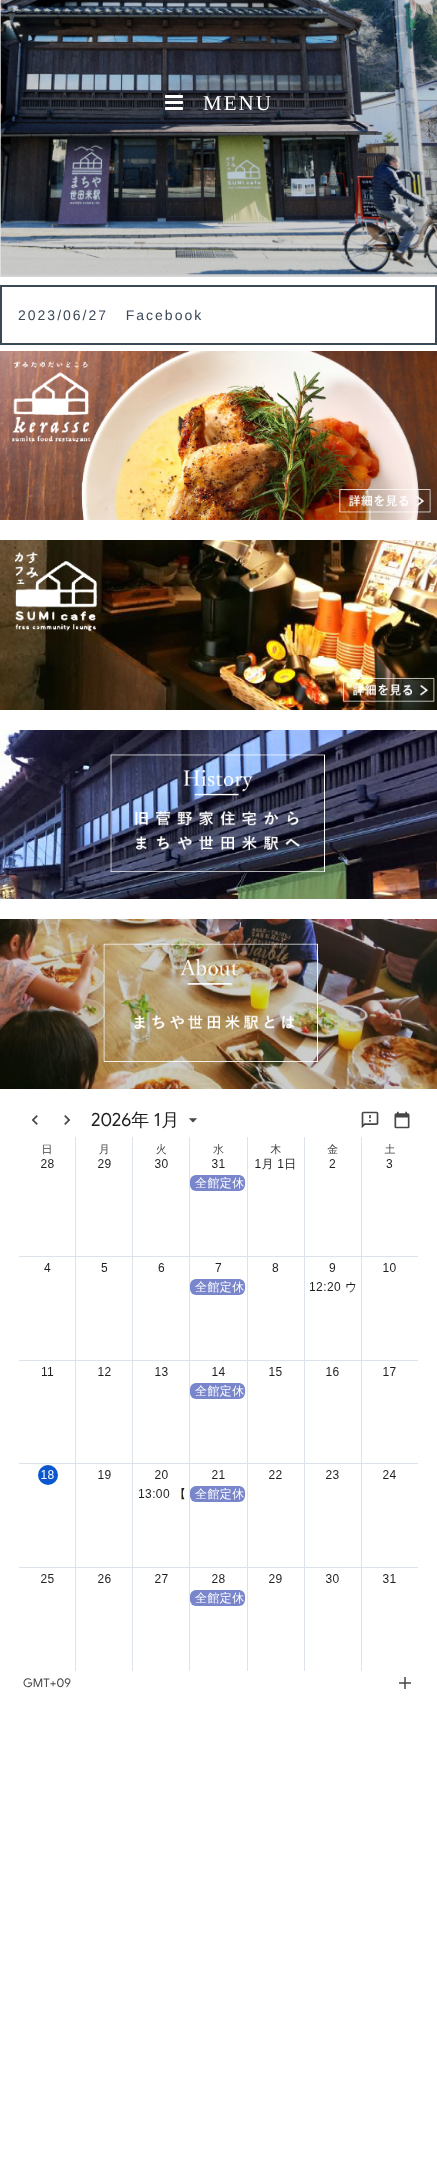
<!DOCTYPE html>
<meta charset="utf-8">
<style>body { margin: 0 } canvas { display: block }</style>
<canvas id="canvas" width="437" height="2167"></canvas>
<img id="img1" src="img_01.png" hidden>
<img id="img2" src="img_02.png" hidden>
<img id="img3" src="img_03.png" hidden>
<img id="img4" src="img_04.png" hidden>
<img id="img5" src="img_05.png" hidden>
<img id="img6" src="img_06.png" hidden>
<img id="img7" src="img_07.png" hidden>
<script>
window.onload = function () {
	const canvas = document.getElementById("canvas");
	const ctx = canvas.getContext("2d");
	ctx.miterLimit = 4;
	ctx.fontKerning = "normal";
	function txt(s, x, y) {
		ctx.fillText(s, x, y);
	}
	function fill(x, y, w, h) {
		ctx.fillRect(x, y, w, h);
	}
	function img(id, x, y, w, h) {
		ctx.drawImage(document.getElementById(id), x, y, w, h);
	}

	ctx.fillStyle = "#FFFFFF";
	fill(0, 0, 437, 2167);
	img("img1", 0, 0, 437, 277);
	img("img2", 165, 95, 18, 15);
	ctx.strokeStyle = "#3B4856";
	ctx.lineWidth = 2;
	ctx.strokeRect(1, 286, 435, 58);
	img("img3", 0, 351, 437, 169);
	img("img4", 0, 540, 437, 170);
	img("img5", 0, 730, 437, 169);
	img("img6", 0, 919, 437, 170);
	img("img7", 19, 1111, 399, 578);
	ctx.letterSpacing = "2px";
	ctx.font = "21px Liberation Serif";
	txt("MENU", 203, 110);
	ctx.font = "14px Liberation Sans";
	ctx.fillStyle = "#3B4856";
	txt("2023/06/27   Facebook", 18, 320);
};
</script>
